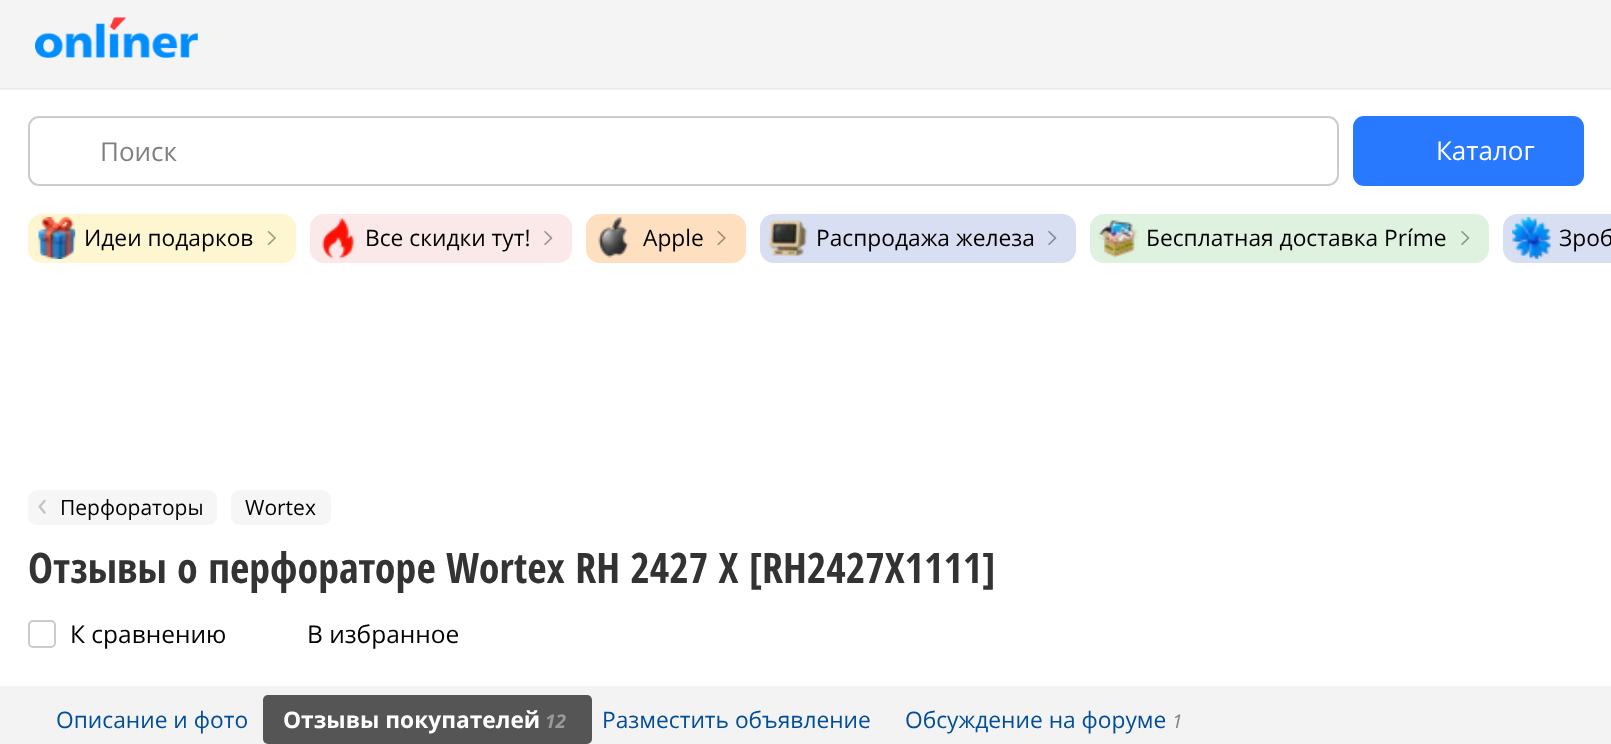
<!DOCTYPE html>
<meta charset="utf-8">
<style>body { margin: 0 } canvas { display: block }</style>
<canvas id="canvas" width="1611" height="744"></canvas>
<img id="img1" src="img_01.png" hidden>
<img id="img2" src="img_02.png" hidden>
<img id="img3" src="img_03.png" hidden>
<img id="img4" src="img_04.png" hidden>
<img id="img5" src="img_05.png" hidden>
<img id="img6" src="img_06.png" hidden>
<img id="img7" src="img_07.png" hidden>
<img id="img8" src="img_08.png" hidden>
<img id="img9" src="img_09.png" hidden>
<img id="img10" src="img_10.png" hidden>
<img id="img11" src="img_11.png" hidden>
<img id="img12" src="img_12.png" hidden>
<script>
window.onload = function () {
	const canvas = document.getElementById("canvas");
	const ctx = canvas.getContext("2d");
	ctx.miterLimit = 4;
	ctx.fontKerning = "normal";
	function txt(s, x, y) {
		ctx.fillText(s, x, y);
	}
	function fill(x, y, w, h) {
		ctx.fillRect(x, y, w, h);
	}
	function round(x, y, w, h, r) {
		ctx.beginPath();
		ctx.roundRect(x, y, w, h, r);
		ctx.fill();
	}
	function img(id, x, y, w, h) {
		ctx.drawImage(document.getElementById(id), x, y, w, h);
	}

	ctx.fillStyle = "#FFFFFF";
	fill(0, 0, 1611, 744);
	ctx.fillStyle = "#F4F4F4";
	fill(0, 0, 1611, 88);
	ctx.fillStyle = "#E8E8E8";
	fill(0, 88, 1611, 1);
	img("img1", 35, 17, 163, 41);
	ctx.fillStyle = "#F2F2F2";
	fill(0, 89, 1611, 1);
	ctx.beginPath();
	ctx.roundRect(29, 117, 1309, 68, 10);
	ctx.strokeStyle = "#CCCCCC";
	ctx.lineWidth = 2;
	ctx.stroke();
	ctx.fillStyle = "#2979FF";
	round(1353, 116, 231, 70, 11);
	ctx.fillStyle = "#FEF6D0";
	round(28, 214, 268, 49, 14);
	img("img2", 267, 231, 9, 14);
	img("img3", 38, 217, 38, 42);
	ctx.fillStyle = "#FBE9E9";
	round(310, 214, 262, 49, 14);
	img("img4", 544, 231, 9, 14);
	img("img5", 321, 218, 33, 41);
	ctx.fillStyle = "#FEE0C1";
	round(586, 214, 160, 49, 14);
	img("img6", 717, 231, 9, 14);
	img("img7", 598, 217, 31, 41);
	ctx.fillStyle = "#D9DFF2";
	round(760, 214, 316, 49, 14);
	img("img8", 1048, 231, 9, 14);
	img("img9", 768, 220, 40, 37);
	ctx.fillStyle = "#DFF2DF";
	round(1090, 214, 399, 49, 14);
	img("img10", 1461, 231, 9, 14);
	img("img11", 1098, 220, 41, 38);
	ctx.fillStyle = "#D9DFF2";
	ctx.beginPath();
	ctx.moveTo(1517, 214);
	ctx.lineTo(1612, 214);
	ctx.lineTo(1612, 263);
	ctx.lineTo(1517, 263);
	ctx.bezierCurveTo(1509.5, 263, 1503, 256.5, 1503, 249);
	ctx.lineTo(1503, 228);
	ctx.bezierCurveTo(1503, 220.5, 1509.5, 214, 1517, 214);
	ctx.closePath();
	ctx.fill();
	img("img12", 1512, 217, 39, 42);
	ctx.fillStyle = "#F6F6F6";
	round(28, 490, 189, 35, 9);
	round(231, 490, 100, 35, 9);
	ctx.beginPath();
	ctx.roundRect(29, 621, 26, 26, 4);
	ctx.stroke();
	ctx.fillStyle = "#F3F3F3";
	fill(0, 686, 1611, 58);
	ctx.fillStyle = "#555555";
	round(263, 695, 329, 49, 5);
	ctx.font = "26px Open Sans";
	ctx.fillStyle = "#808080";
	txt("Поиск", 100, 161);
	ctx.fillStyle = "#FFFFFF";
	txt("Каталог", 1436, 160);
	ctx.font = "22.75px Open Sans";
	ctx.fillStyle = "#000000";
	txt("Идеи подарков", 84, 246);
	txt("Все скидки тут!", 365, 246);
	txt("Apple", 643, 246);
	txt("Распродажа железа", 816, 246);
	txt("Бесплатная доставка Príme", 1146, 246);
	txt("Зроб", 1559, 246);
	ctx.font = "35px Open Sans";
	ctx.fillStyle = "#C5C5C5";
	txt("‹", 37, 516);
	ctx.font = "21px Open Sans";
	ctx.fillStyle = "#000000";
	txt("Перфораторы", 60, 515);
	txt("Wortex", 245, 515);
	ctx.font = "bold 42px Open Sans Condensed";
	ctx.fillStyle = "#333333";
	txt("Отзывы о перфораторе Wortex RH 2427 X [RH2427X1111]", 28, 583);
	ctx.font = "24.5px Open Sans";
	ctx.fillStyle = "#000000";
	txt("К сравнению", 70, 643);
	txt("В избранное", 307, 643);
	ctx.font = "22.75px Open Sans";
	ctx.fillStyle = "#004D99";
	txt("Описание и фото", 56, 728);
	ctx.font = "bold 22.75px Open Sans";
	ctx.fillStyle = "#FFFFFF";
	txt("Отзывы покупателей", 283, 728);
	ctx.font = "italic bold 19px Open Sans";
	ctx.fillStyle = "#999999";
	txt("12", 545, 728);
	ctx.font = "22.75px Open Sans";
	ctx.fillStyle = "#004D99";
	txt("Разместить объявление", 602, 728);
	txt("Обсуждение на форуме", 905, 728);
	ctx.font = "italic 19px Open Sans";
	ctx.fillStyle = "#808080";
	txt("1", 1172, 728);
};
</script>
